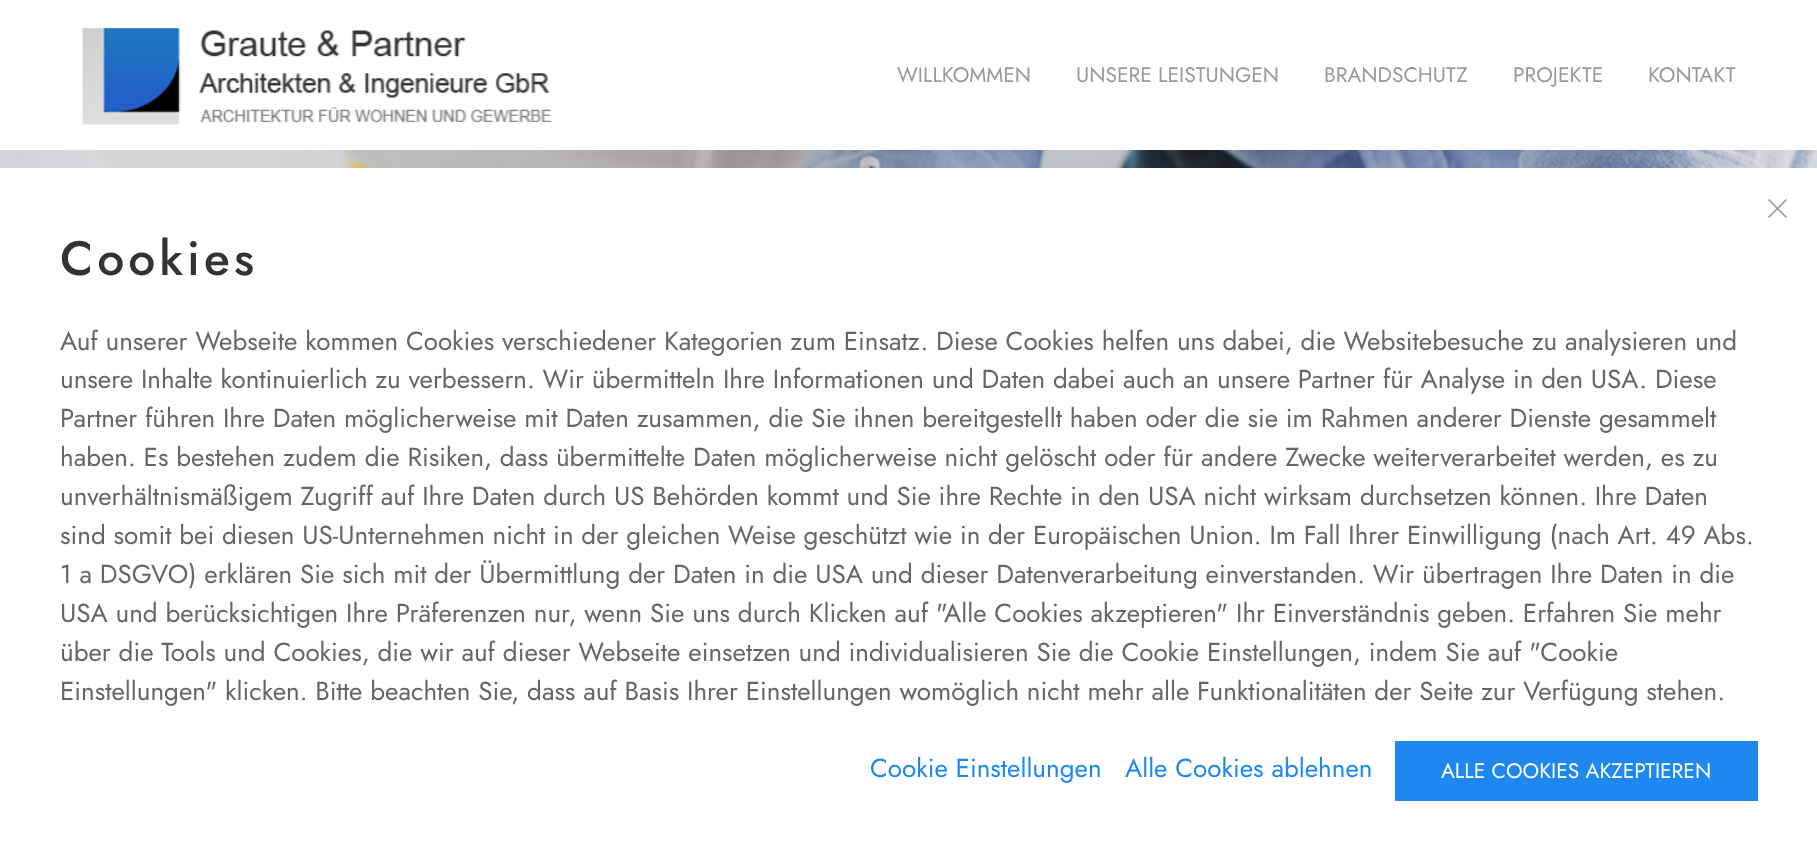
<!DOCTYPE html>
<meta charset="utf-8">
<style>body { margin: 0 } canvas { display: block }</style>
<canvas id="canvas" width="1817" height="843"></canvas>
<img id="img1" src="img_01.png" hidden>
<img id="img2" src="img_02.png" hidden>
<script>
window.onload = function () {
	const canvas = document.getElementById("canvas");
	const ctx = canvas.getContext("2d");
	ctx.miterLimit = 4;
	ctx.fontKerning = "normal";
	function txt(s, x, y) {
		ctx.fillText(s, x, y);
	}
	function fill(x, y, w, h) {
		ctx.fillRect(x, y, w, h);
	}
	function img(id, x, y, w, h) {
		ctx.drawImage(document.getElementById(id), x, y, w, h);
	}

	ctx.fillStyle = "#FFFFFF";
	fill(0, 0, 1817, 843);
	img("img1", 82, 28, 470, 97);
	img("img2", 0, 150, 1817, 18);
	ctx.beginPath();
	ctx.moveTo(1768.5, 199.5);
	ctx.lineTo(1786.5, 217.5);
	ctx.moveTo(1786.5, 199.5);
	ctx.lineTo(1768.5, 217.5);
	ctx.strokeStyle = "#999999";
	ctx.lineWidth = 1.7;
	ctx.stroke();
	ctx.fillStyle = "#1E87F0";
	fill(1395, 741, 363, 60);
	ctx.font = "21px Jost";
	ctx.fillStyle = "#999999";
	txt("WILLKOMMEN", 897, 82);
	txt("UNSERE LEISTUNGEN", 1076, 82);
	txt("BRANDSCHUTZ", 1324, 82);
	txt("PROJEKTE", 1513, 82);
	txt("KONTAKT", 1648, 82);
	ctx.letterSpacing = "4px";
	ctx.font = "500 48px Jost";
	ctx.fillStyle = "#333333";
	txt("Cookies", 60, 275);
	ctx.letterSpacing = "0px";
	ctx.font = "26px Jost";
	ctx.fillStyle = "#666666";
	txt("Auf unserer Webseite kommen Cookies verschiedener Kategorien zum Einsatz. Diese Cookies helfen uns dabei, die Websitebesuche zu analysieren und", 60, 350);
	txt("unsere Inhalte kontinuierlich zu verbessern. Wir übermitteln Ihre Informationen und Daten dabei auch an unsere Partner für Analyse in den USA. Diese", 60, 388);
	txt("Partner führen Ihre Daten möglicherweise mit Daten zusammen, die Sie ihnen bereitgestellt haben oder die sie im Rahmen anderer Dienste gesammelt", 60, 427);
	txt("haben. Es bestehen zudem die Risiken, dass übermittelte Daten möglicherweise nicht gelöscht oder für andere Zwecke weiterverarbeitet werden, es zu", 60, 466);
	txt("unverhältnismäßigem Zugriff auf Ihre Daten durch US Behörden kommt und Sie ihre Rechte in den USA nicht wirksam durchsetzen können. Ihre Daten", 60, 505);
	txt("sind somit bei diesen US-Unternehmen nicht in der gleichen Weise geschützt wie in der Europäischen Union. Im Fall Ihrer Einwilligung (nach Art. 49 Abs.", 60, 544);
	txt("1 a DSGVO) erklären Sie sich mit der Übermittlung der Daten in die USA und dieser Datenverarbeitung einverstanden. Wir übertragen Ihre Daten in die", 60, 583);
	txt("USA und berücksichtigen Ihre Präferenzen nur, wenn Sie uns durch Klicken auf \"Alle Cookies akzeptieren\" Ihr Einverständnis geben. Erfahren Sie mehr", 60, 622);
	txt("über die Tools und Cookies, die wir auf dieser Webseite einsetzen und individualisieren Sie die Cookie Einstellungen, indem Sie auf \"Cookie", 60, 661);
	txt("Einstellungen\" klicken. Bitte beachten Sie, dass auf Basis Ihrer Einstellungen womöglich nicht mehr alle Funktionalitäten der Seite zur Verfügung stehen.", 60, 700);
	ctx.fillStyle = "#1E87F0";
	txt("Cookie Einstellungen", 870, 777);
	txt("Alle Cookies ablehnen", 1125, 777);
	ctx.font = "21px Jost";
	ctx.fillStyle = "#FFFFFF";
	txt("ALLE COOKIES AKZEPTIEREN", 1441, 778);
};
</script>
